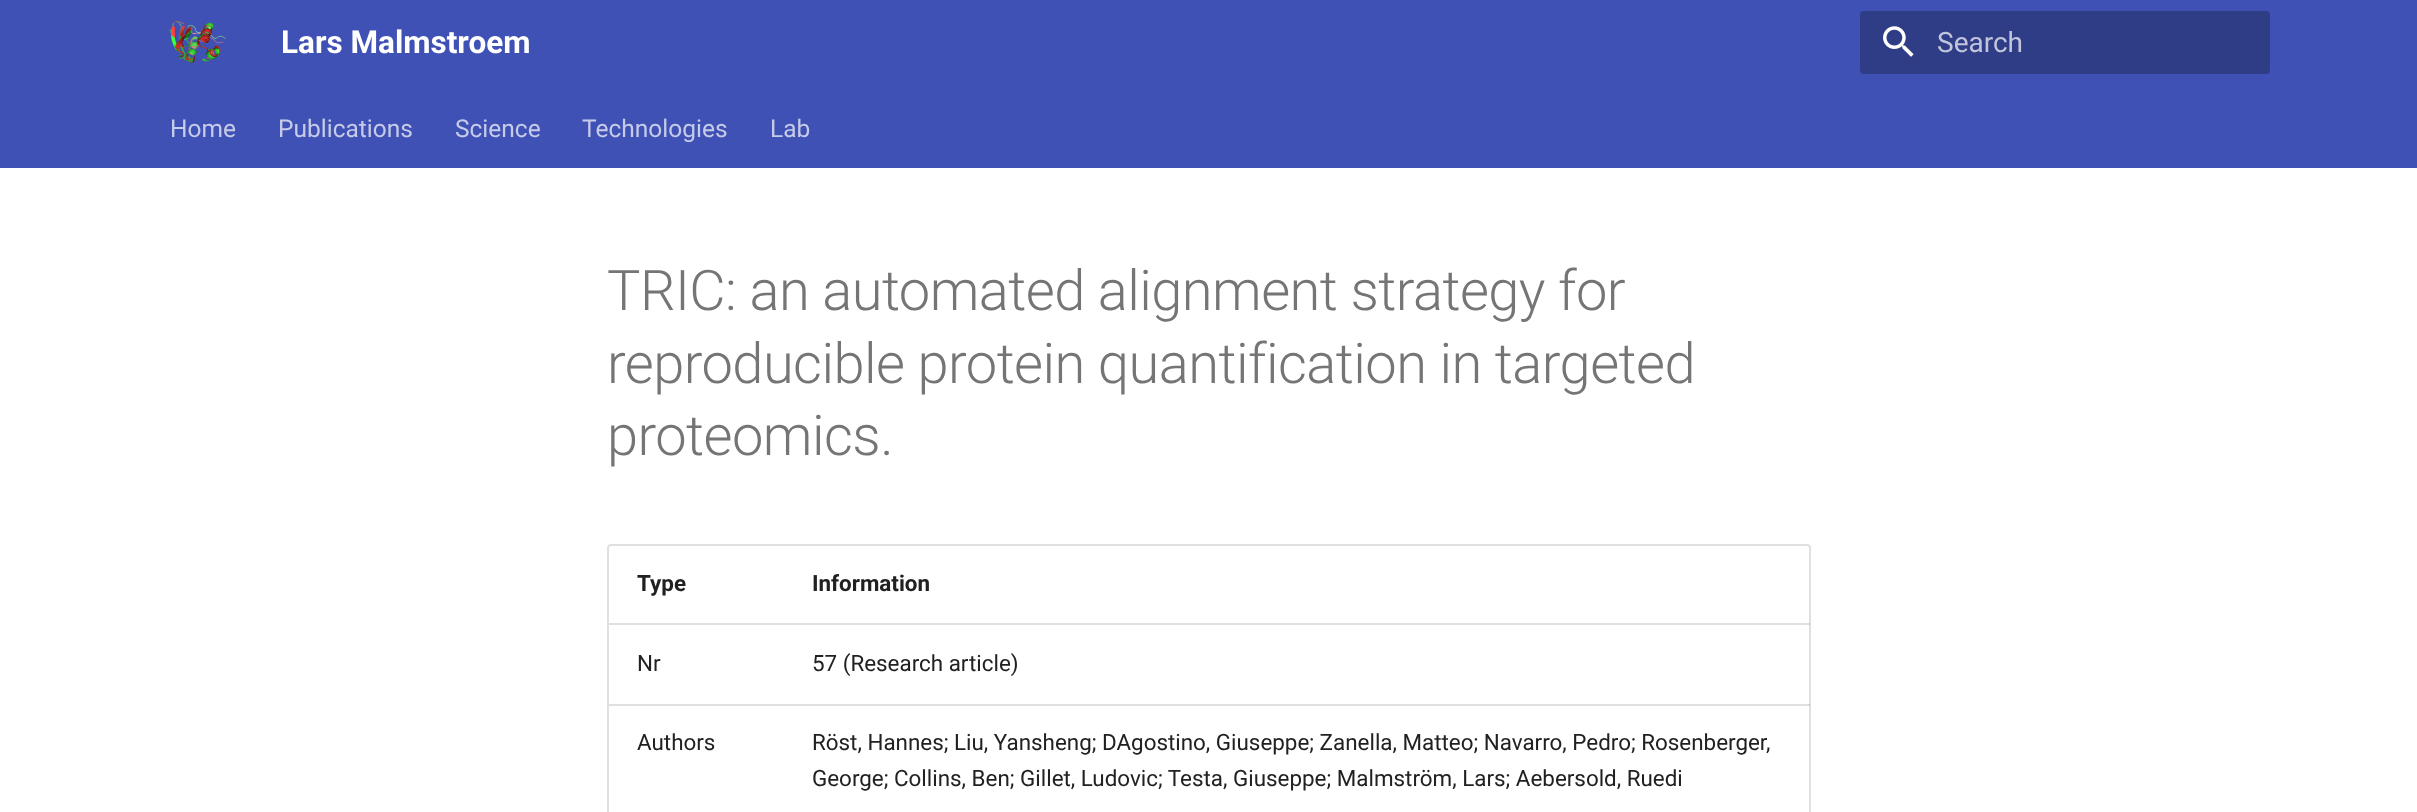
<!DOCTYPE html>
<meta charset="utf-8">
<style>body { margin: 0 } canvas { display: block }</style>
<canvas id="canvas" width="2417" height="812"></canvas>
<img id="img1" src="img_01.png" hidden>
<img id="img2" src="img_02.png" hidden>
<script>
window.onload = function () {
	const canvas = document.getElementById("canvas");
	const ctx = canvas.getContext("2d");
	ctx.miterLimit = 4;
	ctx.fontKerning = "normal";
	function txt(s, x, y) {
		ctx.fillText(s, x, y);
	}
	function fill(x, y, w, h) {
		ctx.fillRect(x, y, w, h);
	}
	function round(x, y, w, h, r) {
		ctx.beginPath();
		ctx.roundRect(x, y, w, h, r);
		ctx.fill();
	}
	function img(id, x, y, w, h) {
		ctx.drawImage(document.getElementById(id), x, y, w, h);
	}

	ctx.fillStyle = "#FFFFFF";
	fill(0, 0, 2417, 812);
	ctx.fillStyle = "#4051B5";
	fill(0, 0, 2417, 168);
	img("img1", 169, 21, 57, 42);
	ctx.fillStyle = "#2F3C86";
	round(1860, 11, 410, 63, 4);
	img("img2", 1883, 26, 31, 31);
	ctx.beginPath();
	ctx.roundRect(608, 545, 1202, 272, 3);
	ctx.strokeStyle = "#E0E0E0";
	ctx.lineWidth = 2;
	ctx.stroke();
	ctx.fillStyle = "#E0E0E0";
	fill(609, 623, 175, 2);
	ctx.fillStyle = "rgba(0, 0, 0, 0.12)";
	fill(784, 623, 1026, 2);
	ctx.fillStyle = "#E0E0E0";
	fill(609, 704, 175, 2);
	ctx.fillStyle = "rgba(0, 0, 0, 0.12)";
	fill(784, 704, 1026, 2);
	ctx.font = "bold 31.5px Roboto";
	ctx.fillStyle = "#FFFFFF";
	txt("Lars Malmstroem", 281, 53);
	ctx.font = "28px Roboto";
	ctx.fillStyle = "#C1C5DB";
	txt("Search", 1937, 52);
	ctx.font = "24.5px Roboto";
	ctx.fillStyle = "#C6CBE9";
	txt("Home", 170, 137);
	txt("Publications", 278, 137);
	txt("Science", 455, 137);
	txt("Technologies", 582, 137);
	txt("Lab", 770, 137);
	ctx.letterSpacing = "-0.55px";
	ctx.font = "300 56px Roboto";
	ctx.fillStyle = "#757575";
	txt("TRIC: an automated alignment strategy for", 607, 310);
	txt("reproducible protein quantification in targeted", 607, 383);
	txt("proteomics.", 607, 455);
	ctx.letterSpacing = "0px";
	ctx.font = "bold 22.4px Roboto";
	ctx.fillStyle = "#212121";
	txt("Type", 637, 591);
	txt("Information", 812, 591);
	ctx.font = "22.4px Roboto";
	txt("Nr", 637, 671);
	txt("57 (Research article)", 812, 671);
	txt("Authors", 637, 750);
	txt("Röst, Hannes; Liu, Yansheng; DAgostino, Giuseppe; Zanella, Matteo; Navarro, Pedro; Rosenberger,", 812, 750);
	txt("George; Collins, Ben; Gillet, Ludovic; Testa, Giuseppe; Malmström, Lars; Aebersold, Ruedi", 812, 786);
};
</script>
